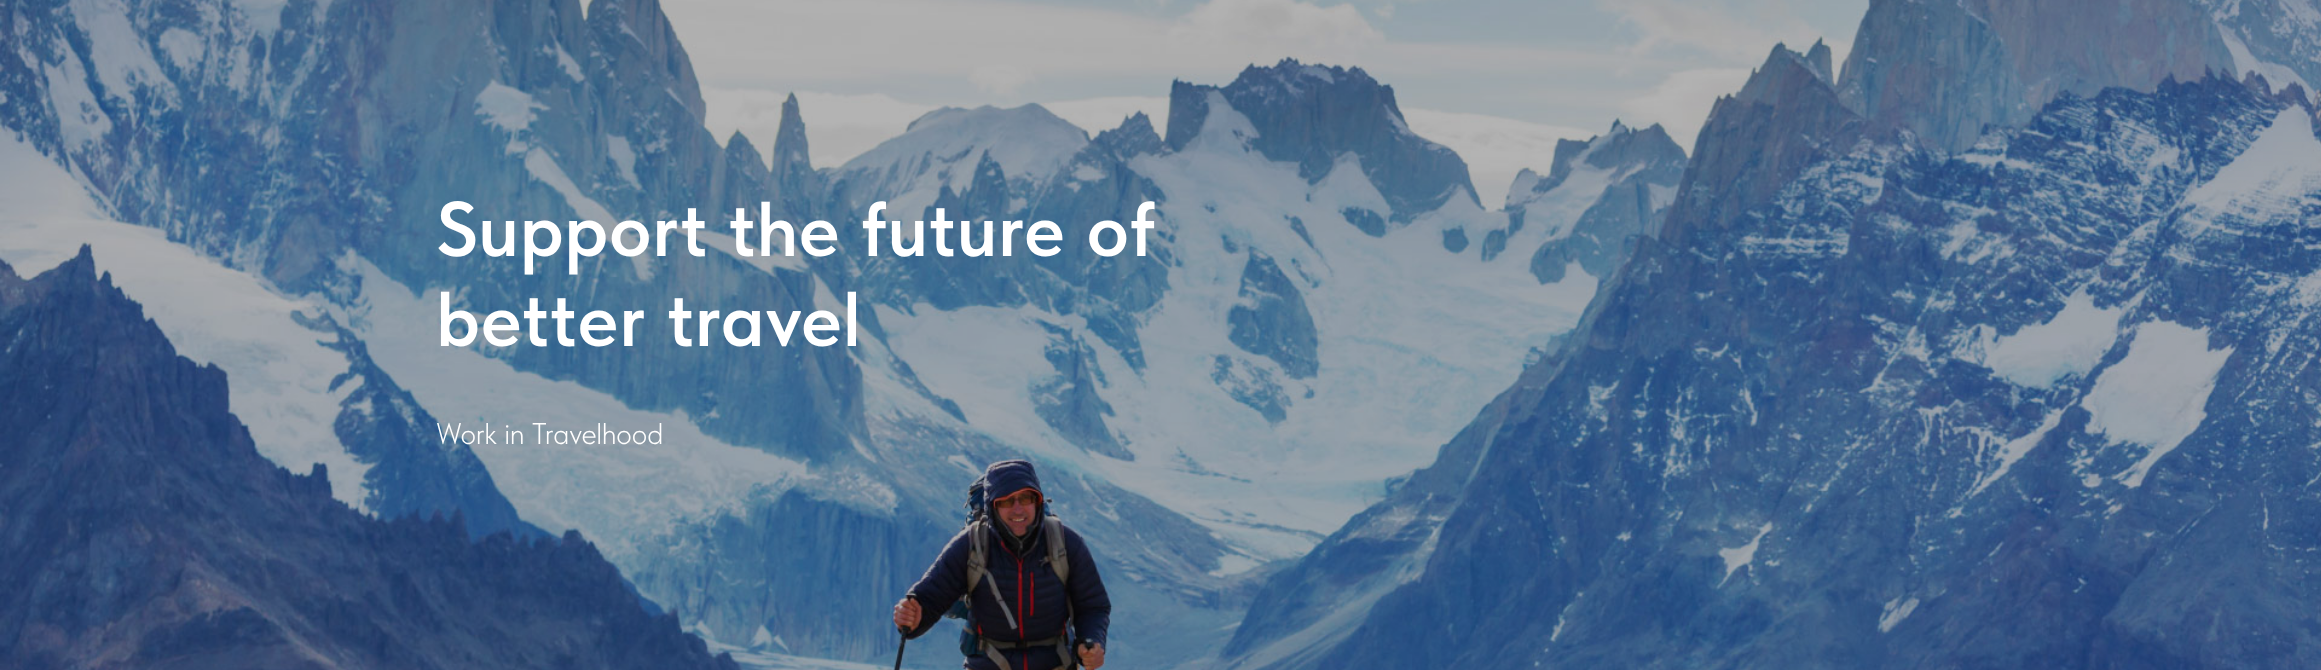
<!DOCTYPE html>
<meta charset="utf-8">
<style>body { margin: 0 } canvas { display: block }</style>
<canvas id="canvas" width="2321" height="670"></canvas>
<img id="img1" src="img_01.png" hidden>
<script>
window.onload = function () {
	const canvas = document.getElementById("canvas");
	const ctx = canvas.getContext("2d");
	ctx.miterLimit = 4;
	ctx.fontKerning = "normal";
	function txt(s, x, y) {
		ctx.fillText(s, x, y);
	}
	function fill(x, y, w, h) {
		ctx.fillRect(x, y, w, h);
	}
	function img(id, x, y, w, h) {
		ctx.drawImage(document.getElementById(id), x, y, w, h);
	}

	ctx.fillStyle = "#FFFFFF";
	fill(0, 0, 2321, 670);
	img("img1", 0, 0, 2321, 670);
	ctx.letterSpacing = "0.6px";
	ctx.font = "600 77.5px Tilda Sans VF";
	txt("Support the future of", 436, 256);
	txt("better travel", 436, 346);
	ctx.letterSpacing = "0px";
	ctx.font = "300 30px Tilda Sans VF";
	txt("Work in Travelhood", 436, 444);
};
</script>
